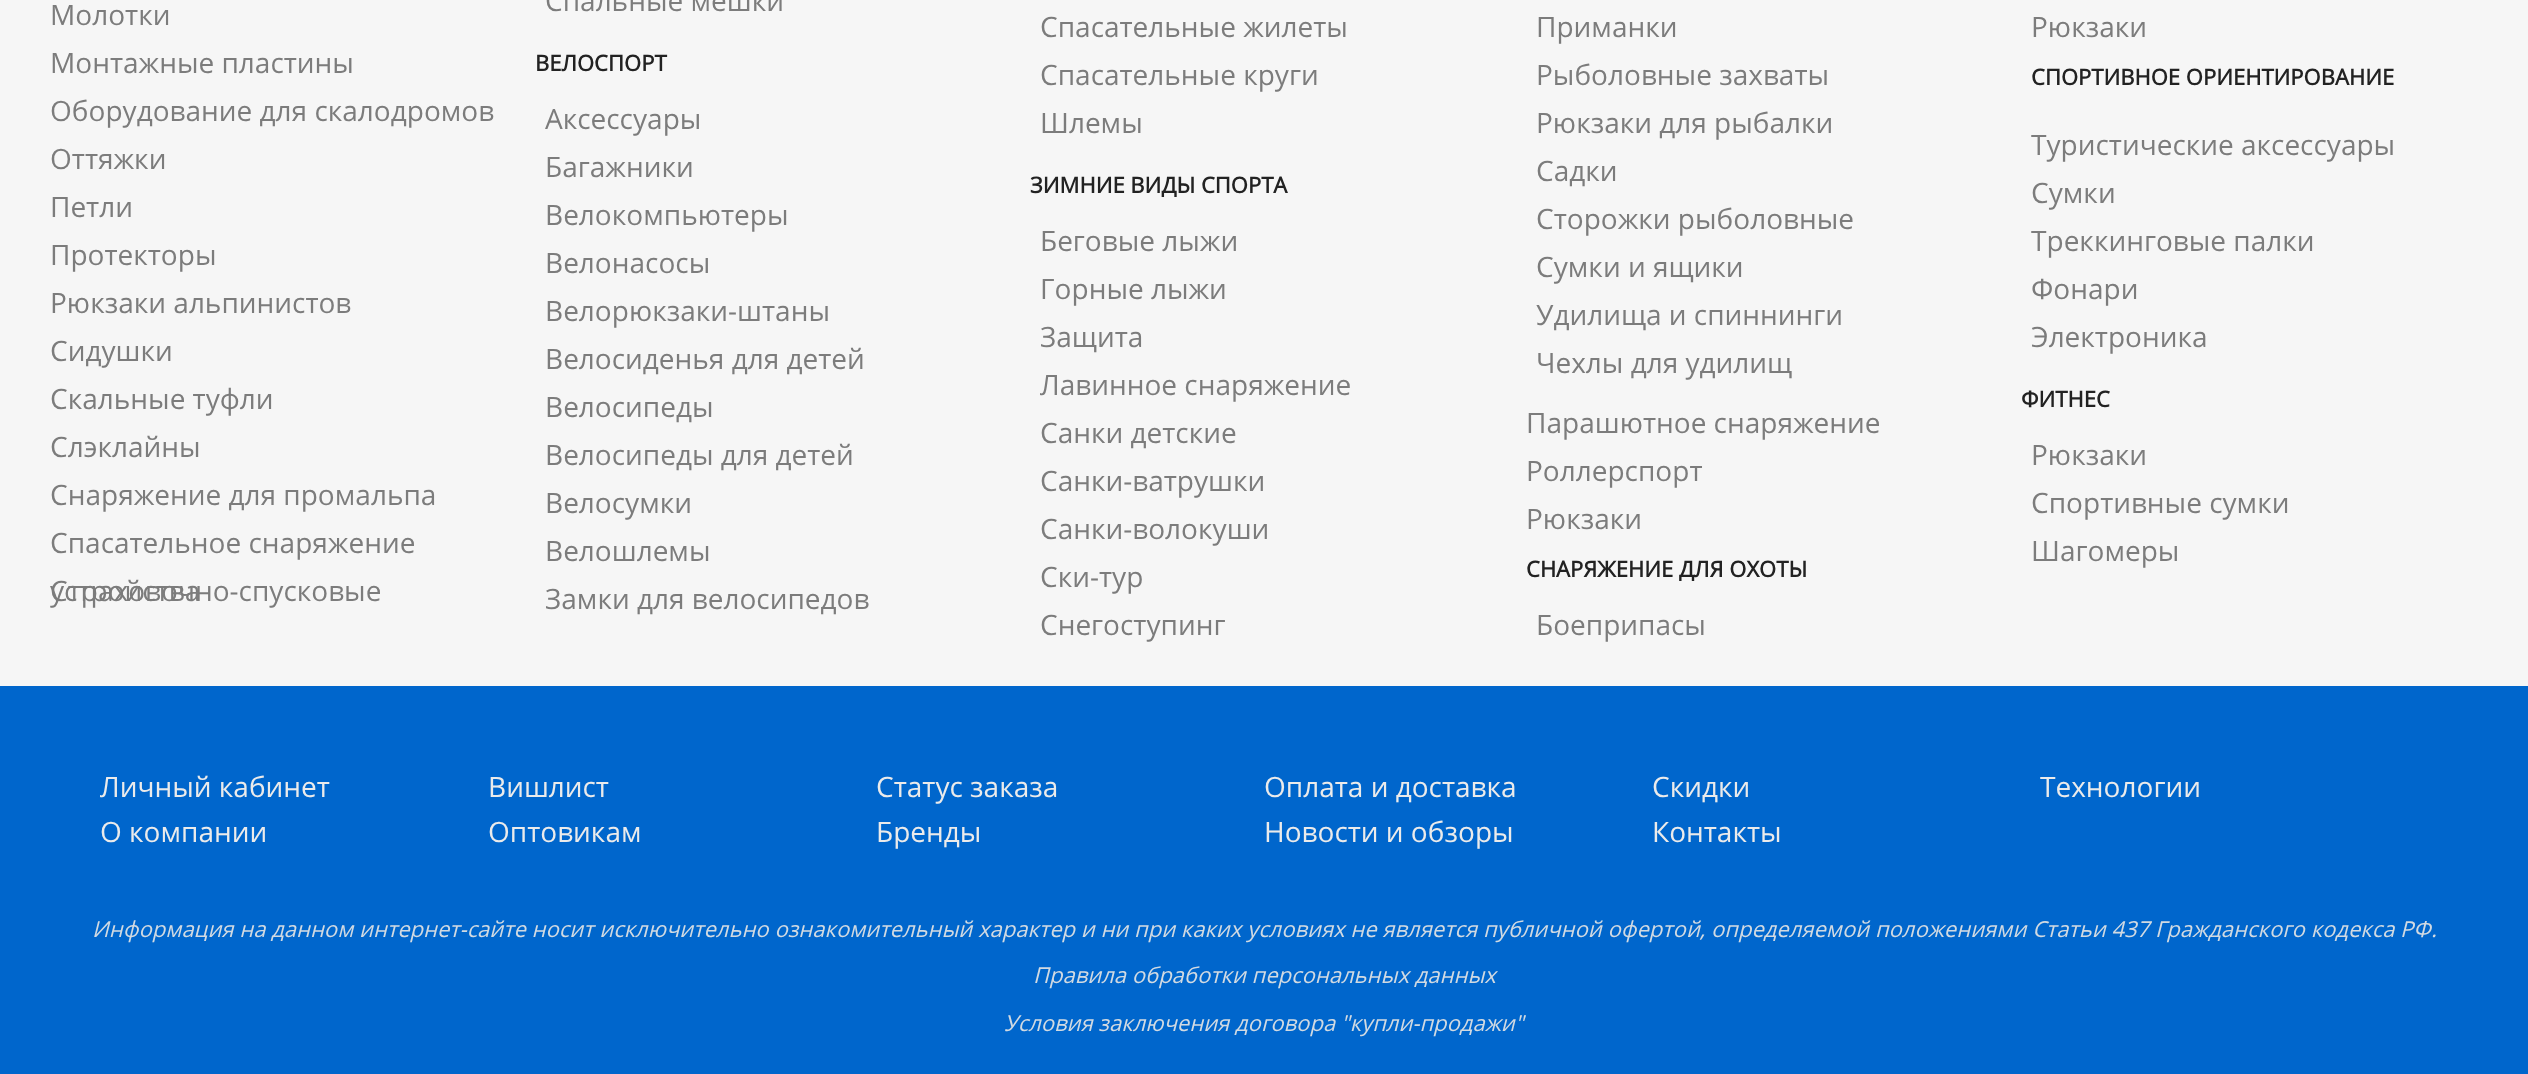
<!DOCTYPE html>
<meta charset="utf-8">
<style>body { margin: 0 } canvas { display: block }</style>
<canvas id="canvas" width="2528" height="1074"></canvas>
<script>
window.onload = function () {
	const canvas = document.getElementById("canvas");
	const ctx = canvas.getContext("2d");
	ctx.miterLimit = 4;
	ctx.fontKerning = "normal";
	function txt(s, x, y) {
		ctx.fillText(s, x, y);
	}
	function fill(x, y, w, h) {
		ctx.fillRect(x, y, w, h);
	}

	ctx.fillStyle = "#F6F6F6";
	fill(0, 0, 2528, 1074);
	ctx.fillStyle = "#0066CC";
	fill(0, 686, 2528, 388);
	ctx.font = "28px Open Sans";
	ctx.fillStyle = "#7C7C7C";
	txt("Молотки", 50, 25);
	txt("Монтажные пластины", 50, 73);
	txt("Оборудование для скалодромов", 50, 121);
	txt("Оттяжки", 50, 169);
	txt("Петли", 50, 217);
	txt("Протекторы", 50, 265);
	txt("Рюкзаки альпинистов", 50, 313);
	txt("Сидушки", 50, 361);
	txt("Скальные туфли", 50, 409);
	txt("Слэклайны", 50, 457);
	txt("Снаряжение для промальпа", 50, 505);
	txt("Спасательное снаряжение", 50, 553);
	txt("Страховочно-спусковые", 50, 601);
	txt("устройства", 50, 601);
	txt("Спальные мешки", 545, 11);
	txt("Спасательные жилеты", 1040, 37);
	txt("Спасательные круги", 1040, 85);
	txt("Шлемы", 1040, 133);
	txt("Приманки", 1536, 37);
	txt("Рыболовные захваты", 1536, 85);
	txt("Рюкзаки для рыбалки", 1536, 133);
	txt("Садки", 1536, 181);
	txt("Сторожки рыболовные", 1536, 229);
	txt("Сумки и ящики", 1536, 277);
	txt("Удилища и спиннинги", 1536, 325);
	txt("Чехлы для удилищ", 1536, 373);
	txt("Рюкзаки", 2031, 37);
	ctx.font = "bold 22px Open Sans";
	ctx.fillStyle = "#222222";
	txt("СПОРТИВНОЕ ОРИЕНТИРОВАНИЕ", 2031, 85);
	ctx.font = "28px Open Sans";
	ctx.fillStyle = "#7C7C7C";
	txt("Туристические аксессуары", 2031, 155);
	txt("Сумки", 2031, 203);
	txt("Треккинговые палки", 2031, 251);
	txt("Фонари", 2031, 299);
	txt("Электроника", 2031, 347);
	ctx.font = "bold 22px Open Sans";
	ctx.fillStyle = "#222222";
	txt("ВЕЛОСПОРТ", 535, 71);
	ctx.font = "28px Open Sans";
	ctx.fillStyle = "#7C7C7C";
	txt("Аксессуары", 545, 129);
	txt("Багажники", 545, 177);
	txt("Велокомпьютеры", 545, 225);
	txt("Велонасосы", 545, 273);
	txt("Велорюкзаки-штаны", 545, 321);
	txt("Велосиденья для детей", 545, 369);
	txt("Велосипеды", 545, 417);
	txt("Велосипеды для детей", 545, 465);
	txt("Велосумки", 545, 513);
	txt("Велошлемы", 545, 561);
	txt("Замки для велосипедов", 545, 609);
	ctx.font = "bold 22px Open Sans";
	ctx.fillStyle = "#222222";
	txt("ЗИМНИЕ ВИДЫ СПОРТА", 1030, 193);
	ctx.font = "28px Open Sans";
	ctx.fillStyle = "#7C7C7C";
	txt("Беговые лыжи", 1040, 251);
	txt("Горные лыжи", 1040, 299);
	txt("Защита", 1040, 347);
	txt("Лавинное снаряжение", 1040, 395);
	txt("Санки детские", 1040, 443);
	txt("Санки-ватрушки", 1040, 491);
	txt("Санки-волокуши", 1040, 539);
	txt("Ски-тур", 1040, 587);
	txt("Снегоступинг", 1040, 635);
	txt("Парашютное снаряжение", 1526, 433);
	ctx.font = "bold 22px Open Sans";
	ctx.fillStyle = "#222222";
	txt("ФИТНЕС", 2021, 407);
	ctx.font = "28px Open Sans";
	ctx.fillStyle = "#7C7C7C";
	txt("Рюкзаки", 2031, 465);
	txt("Спортивные сумки", 2031, 513);
	txt("Шагомеры", 2031, 561);
	txt("Роллерспорт", 1526, 481);
	txt("Рюкзаки", 1526, 529);
	ctx.font = "bold 22px Open Sans";
	ctx.fillStyle = "#222222";
	txt("СНАРЯЖЕНИЕ ДЛЯ ОХОТЫ", 1526, 577);
	ctx.font = "28px Open Sans";
	ctx.fillStyle = "#7C7C7C";
	txt("Боеприпасы", 1536, 635);
	ctx.fillStyle = "#EBEBEB";
	txt("Личный кабинет", 100, 797);
	txt("Вишлист", 488, 797);
	txt("Статус заказа", 876, 797);
	txt("Оплата и доставка", 1264, 797);
	txt("Скидки", 1652, 797);
	txt("Технологии", 2040, 797);
	txt("О компании", 100, 842);
	txt("Оптовикам", 488, 842);
	txt("Бренды", 876, 842);
	txt("Новости и обзоры", 1264, 842);
	txt("Контакты", 1652, 842);
	ctx.font = "italic 22px Open Sans";
	ctx.fillStyle = "#D1DAE2";
	txt("Информация на данном интернет-сайте носит исключительно ознакомительный характер и ни при каких условиях не является публичной офертой, определяемой положениями Статьи 437 Гражданского кодекса РФ.", 92, 937);
	txt("Правила обработки персональных данных", 1033, 983);
	txt("Условия заключения договора \"купли-продажи\"", 1004, 1031);
};
</script>
